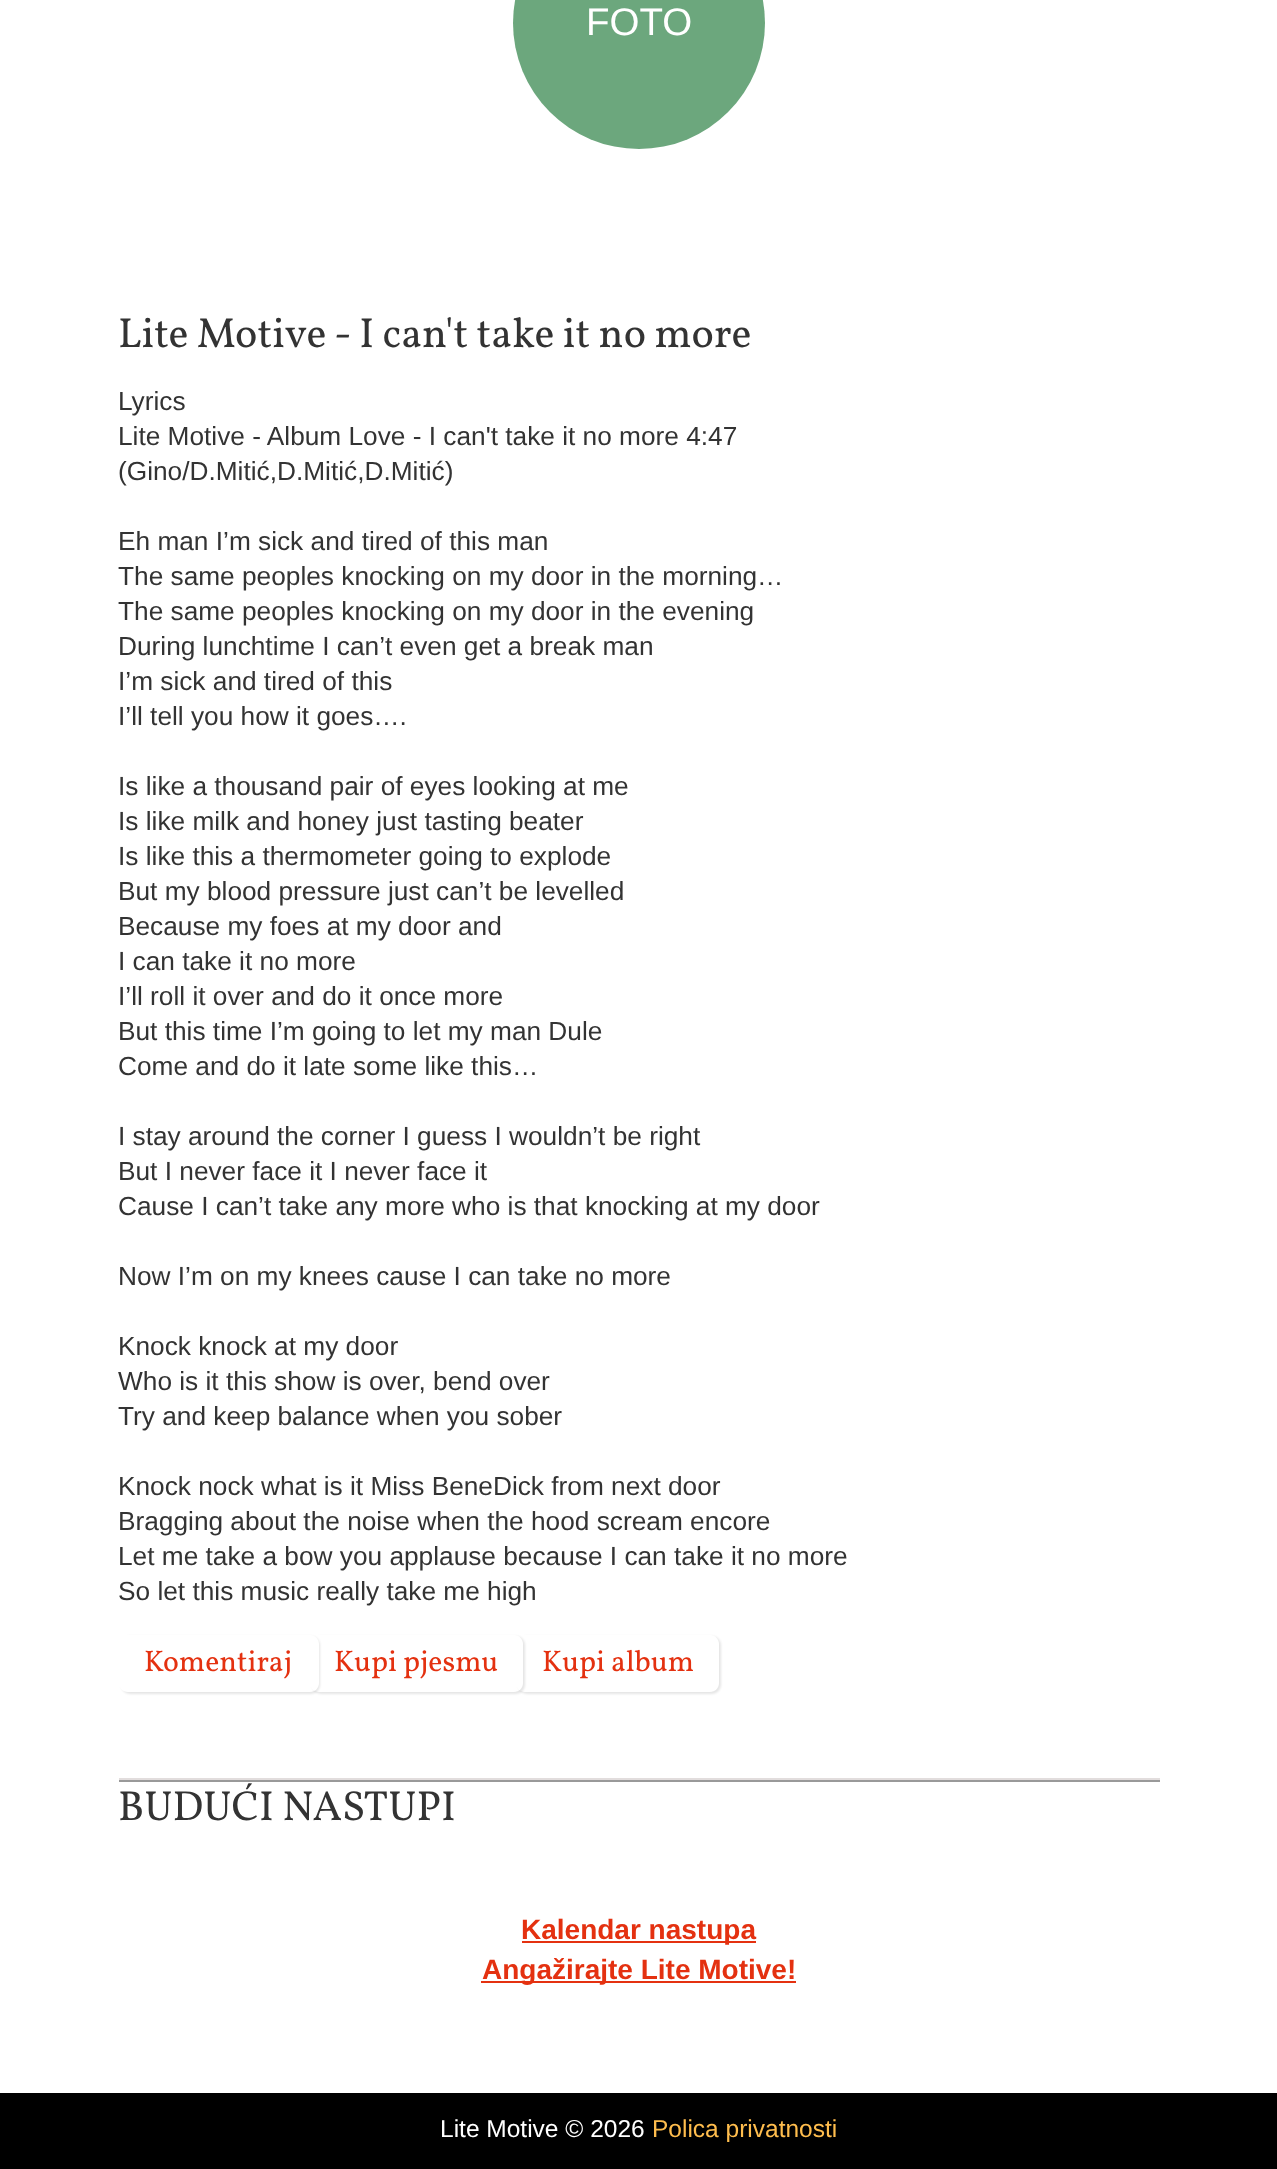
<!DOCTYPE html>
<meta charset="utf-8">
<style>body { margin: 0 } canvas { display: block }</style>
<canvas id="canvas" width="1277" height="2169"></canvas>
<script>
window.onload = function () {
	const canvas = document.getElementById("canvas");
	const ctx = canvas.getContext("2d");
	ctx.miterLimit = 4;
	ctx.fontKerning = "normal";
	function txt(s, x, y) {
		ctx.fillText(s, x, y);
	}
	function fill(x, y, w, h) {
		ctx.fillRect(x, y, w, h);
	}

	ctx.fillStyle = "#FFFFFF";
	fill(0, 0, 1277, 2169);
	ctx.fillStyle = "#6CA77D";
	ctx.beginPath();
	ctx.arc(639, 23, 126, 0, Math.PI * 2);
	ctx.fill();
	ctx.fillStyle = "#999999";
	fill(119, 1780, 1041, 2);
	ctx.fillStyle = "#E2DDDD";
	fill(119, 1778, 1041, 2);
	ctx.save();
	ctx.beginPath();
	ctx.moveTo(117, 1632);
	ctx.lineTo(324, 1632);
	ctx.lineTo(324, 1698);
	ctx.lineTo(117, 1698);
	ctx.closePath();
	ctx.moveTo(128, 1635);
	ctx.lineTo(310, 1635);
	ctx.bezierCurveTo(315, 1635, 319, 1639, 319, 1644);
	ctx.lineTo(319, 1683);
	ctx.bezierCurveTo(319, 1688, 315, 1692, 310, 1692);
	ctx.lineTo(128, 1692);
	ctx.bezierCurveTo(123, 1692, 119, 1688, 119, 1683);
	ctx.lineTo(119, 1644);
	ctx.bezierCurveTo(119, 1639, 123, 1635, 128, 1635);
	ctx.closePath();
	ctx.clip("evenodd");
	ctx.fillStyle = "rgba(0, 0, 0, 0.1)";
	ctx.filter = "blur(1px)";
	ctx.beginPath();
	ctx.roundRect(121, 1636, 199, 58, 9);
	ctx.fill();
	ctx.filter = "none";
	ctx.restore();
	ctx.save();
	ctx.beginPath();
	ctx.moveTo(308, 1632);
	ctx.lineTo(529, 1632);
	ctx.lineTo(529, 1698);
	ctx.lineTo(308, 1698);
	ctx.closePath();
	ctx.moveTo(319, 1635);
	ctx.lineTo(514, 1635);
	ctx.bezierCurveTo(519, 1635, 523, 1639, 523, 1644);
	ctx.lineTo(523, 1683);
	ctx.bezierCurveTo(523, 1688, 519, 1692, 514, 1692);
	ctx.lineTo(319, 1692);
	ctx.bezierCurveTo(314, 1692, 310, 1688, 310, 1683);
	ctx.lineTo(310, 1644);
	ctx.bezierCurveTo(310, 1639, 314, 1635, 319, 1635);
	ctx.closePath();
	ctx.clip("evenodd");
	ctx.fillStyle = "rgba(0, 0, 0, 0.1)";
	ctx.filter = "blur(1px)";
	ctx.beginPath();
	ctx.roundRect(312, 1636, 213, 58, 9);
	ctx.fill();
	ctx.filter = "none";
	ctx.restore();
	ctx.save();
	ctx.beginPath();
	ctx.moveTo(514, 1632);
	ctx.lineTo(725, 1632);
	ctx.lineTo(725, 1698);
	ctx.lineTo(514, 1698);
	ctx.closePath();
	ctx.moveTo(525, 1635);
	ctx.lineTo(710, 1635);
	ctx.bezierCurveTo(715, 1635, 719, 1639, 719, 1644);
	ctx.lineTo(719, 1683);
	ctx.bezierCurveTo(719, 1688, 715, 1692, 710, 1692);
	ctx.lineTo(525, 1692);
	ctx.bezierCurveTo(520, 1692, 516, 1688, 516, 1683);
	ctx.lineTo(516, 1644);
	ctx.bezierCurveTo(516, 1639, 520, 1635, 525, 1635);
	ctx.closePath();
	ctx.clip("evenodd");
	ctx.fillStyle = "rgba(0, 0, 0, 0.1)";
	ctx.filter = "blur(1px)";
	ctx.beginPath();
	ctx.roundRect(518, 1636, 203, 58, 9);
	ctx.fill();
	ctx.filter = "none";
	ctx.restore();
	ctx.fillStyle = "#E43110";
	fill(522, 1941, 234, 2);
	fill(481, 1981, 315, 2);
	ctx.fillStyle = "#000000";
	fill(0, 2093, 1277, 76);
	ctx.font = "38.5px Liberation Sans";
	ctx.fillStyle = "#FFFFFF";
	txt("FOTO", 586, 35);
	ctx.font = "42px Vollkorn";
	ctx.fillStyle = "#333333";
	txt("Lite Motive - I can't take it no more", 118, 347);
	ctx.font = "26.25px Liberation Sans";
	txt("Lyrics", 118, 410);
	txt("Lite Motive - Album Love - I can't take it no more 4:47", 118, 445);
	txt("(Gino/D.Mitić,D.Mitić,D.Mitić)", 118, 480);
	txt("Eh man I’m sick and tired of this man", 118, 550);
	txt("The same peoples knocking on my door in the morning…", 118, 585);
	txt("The same peoples knocking on my door in the evening", 118, 620);
	txt("During lunchtime I can’t even get a break man", 118, 655);
	txt("I’m sick and tired of this", 118, 690);
	txt("I’ll tell you how it goes….", 118, 725);
	txt("Is like a thousand pair of eyes looking at me", 118, 795);
	txt("Is like milk and honey just tasting beater", 118, 830);
	txt("Is like this a thermometer going to explode", 118, 865);
	txt("But my blood pressure just can’t be levelled", 118, 900);
	txt("Because my foes at my door and", 118, 935);
	txt("I can take it no more", 118, 970);
	txt("I’ll roll it over and do it once more", 118, 1005);
	txt("But this time I’m going to let my man Dule", 118, 1040);
	txt("Come and do it late some like this…", 118, 1075);
	txt("I stay around the corner I guess I wouldn’t be right", 118, 1145);
	txt("But I never face it I never face it", 118, 1180);
	txt("Cause I can’t take any more who is that knocking at my door", 118, 1215);
	txt("Now I’m on my knees cause I can take no more", 118, 1285);
	txt("Knock knock at my door", 118, 1355);
	txt("Who is it this show is over, bend over", 118, 1390);
	txt("Try and keep balance when you sober", 118, 1425);
	txt("Knock nock what is it Miss BeneDick from next door", 118, 1495);
	txt("Bragging about the noise when the hood scream encore", 118, 1530);
	txt("Let me take a bow you applause because I can take it no more", 118, 1565);
	txt("So let this music really take me high", 118, 1600);
	ctx.font = "29.75px Vollkorn";
	ctx.fillStyle = "#E43110";
	txt("Komentiraj", 144, 1671);
	txt("Kupi pjesmu", 334, 1671);
	txt("Kupi album", 542, 1671);
	ctx.font = "42px Vollkorn";
	ctx.fillStyle = "#333333";
	txt("BUDUĆI NASTUPI", 118, 1820);
	ctx.font = "bold 28px Liberation Sans";
	ctx.fillStyle = "#E43110";
	txt("Kalendar nastupa", 521, 1939);
	txt("Angažirajte Lite Motive!", 482, 1979);
	ctx.font = "24.5px Liberation Sans";
	ctx.fillStyle = "#FFFFFF";
	txt("Lite Motive © 2026", 440, 2137);
	ctx.fillStyle = "#FFBD4D";
	txt("Polica privatnosti", 652, 2137);
};
</script>
